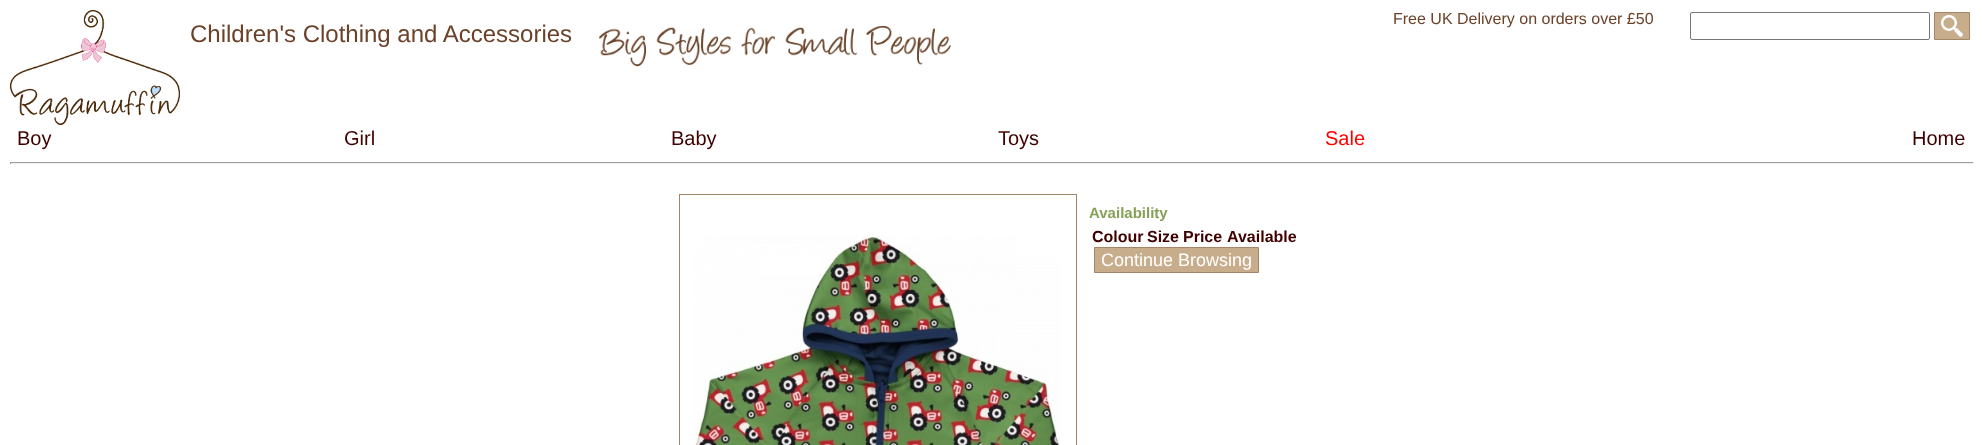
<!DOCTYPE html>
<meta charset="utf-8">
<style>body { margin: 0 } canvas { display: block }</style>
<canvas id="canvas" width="1982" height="445"></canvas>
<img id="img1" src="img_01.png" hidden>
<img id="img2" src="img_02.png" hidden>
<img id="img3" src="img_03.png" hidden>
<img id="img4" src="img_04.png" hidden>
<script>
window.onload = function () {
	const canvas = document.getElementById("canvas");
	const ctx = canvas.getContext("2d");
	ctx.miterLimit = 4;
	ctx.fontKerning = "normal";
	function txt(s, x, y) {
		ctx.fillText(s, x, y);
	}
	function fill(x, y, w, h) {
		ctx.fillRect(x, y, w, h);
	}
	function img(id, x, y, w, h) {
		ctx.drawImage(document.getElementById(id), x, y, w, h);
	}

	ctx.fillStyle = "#FFFFFF";
	fill(0, 0, 1982, 445);
	img("img1", 10, 10, 170, 115);
	img("img2", 598, 26, 353, 41);
	ctx.beginPath();
	ctx.roundRect(1690.5, 12.5, 239, 27, 1.5);
	ctx.strokeStyle = "#767676";
	ctx.stroke();
	ctx.fillStyle = "#C8AD8C";
	ctx.beginPath();
	ctx.rect(1934.5, 12.5, 35, 27);
	ctx.fill();
	ctx.strokeStyle = "#A58567";
	ctx.stroke();
	img("img3", 1941, 15, 22, 22);
	ctx.fillStyle = "#9F9F9F";
	fill(10, 162, 1964, 1);
	ctx.fillStyle = "#EEEEEE";
	fill(1973, 162, 1, 2);
	fill(10, 163, 1964, 1);
	ctx.fillStyle = "#9F9F9F";
	fill(10, 162, 1, 2);
	ctx.strokeRect(679.5, 194.5, 397, 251);
	img("img4", 693, 235, 367, 210);
	ctx.fillStyle = "#C8AD8C";
	ctx.beginPath();
	ctx.rect(1094.5, 247.5, 164, 25);
	ctx.fill();
	ctx.stroke();
	ctx.font = "24px Liberation Sans";
	ctx.fillStyle = "#6B4229";
	txt("Children's Clothing and Accessories", 190, 42);
	ctx.font = "16px Liberation Sans";
	txt("Free UK Delivery on orders over £50", 1393, 24);
	ctx.font = "20px Liberation Sans";
	ctx.fillStyle = "#3F0000";
	txt("Boy", 17, 145);
	txt("Girl", 344, 145);
	txt("Baby", 671, 145);
	txt("Toys", 998, 145);
	ctx.fillStyle = "#FF0000";
	txt("Sale", 1325, 145);
	ctx.fillStyle = "#3F0000";
	txt("Home", 1912, 145);
	ctx.font = "bold 15px Liberation Sans";
	ctx.fillStyle = "#85A157";
	txt("Availability", 1089, 218);
	ctx.font = "bold 16px Liberation Sans";
	ctx.fillStyle = "#3F0000";
	txt("Colour", 1092, 242);
	txt("Size", 1147, 242);
	txt("Price", 1183, 242);
	txt("Available", 1227, 242);
	ctx.font = "18px Liberation Sans";
	ctx.fillStyle = "#FFFFFF";
	txt("Continue Browsing", 1101, 266);
};
</script>
